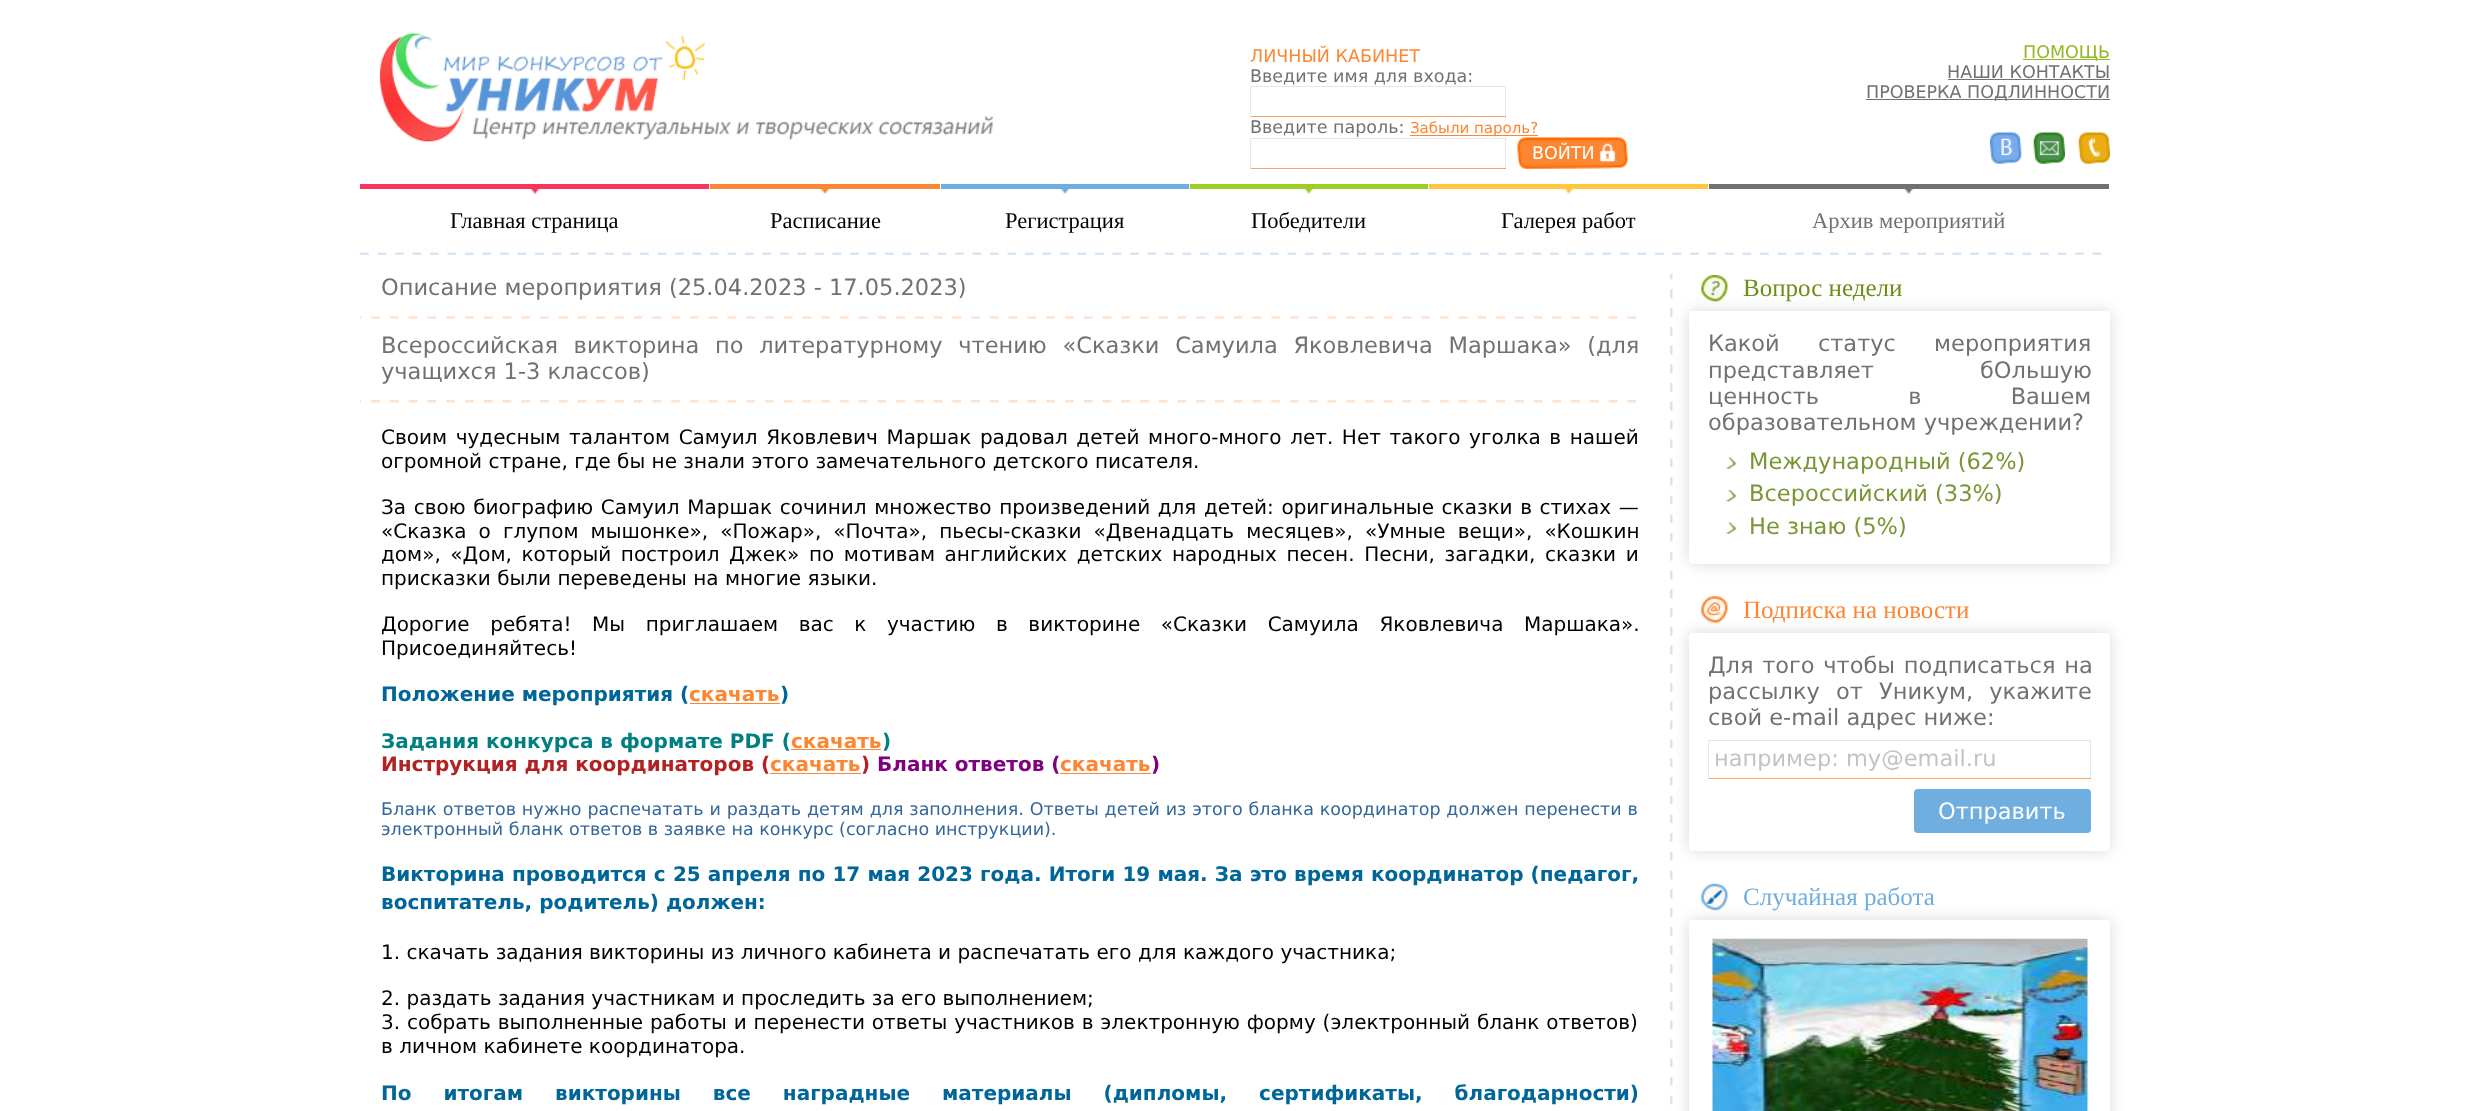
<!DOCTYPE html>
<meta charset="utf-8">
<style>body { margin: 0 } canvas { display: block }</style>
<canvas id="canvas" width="2470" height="1111"></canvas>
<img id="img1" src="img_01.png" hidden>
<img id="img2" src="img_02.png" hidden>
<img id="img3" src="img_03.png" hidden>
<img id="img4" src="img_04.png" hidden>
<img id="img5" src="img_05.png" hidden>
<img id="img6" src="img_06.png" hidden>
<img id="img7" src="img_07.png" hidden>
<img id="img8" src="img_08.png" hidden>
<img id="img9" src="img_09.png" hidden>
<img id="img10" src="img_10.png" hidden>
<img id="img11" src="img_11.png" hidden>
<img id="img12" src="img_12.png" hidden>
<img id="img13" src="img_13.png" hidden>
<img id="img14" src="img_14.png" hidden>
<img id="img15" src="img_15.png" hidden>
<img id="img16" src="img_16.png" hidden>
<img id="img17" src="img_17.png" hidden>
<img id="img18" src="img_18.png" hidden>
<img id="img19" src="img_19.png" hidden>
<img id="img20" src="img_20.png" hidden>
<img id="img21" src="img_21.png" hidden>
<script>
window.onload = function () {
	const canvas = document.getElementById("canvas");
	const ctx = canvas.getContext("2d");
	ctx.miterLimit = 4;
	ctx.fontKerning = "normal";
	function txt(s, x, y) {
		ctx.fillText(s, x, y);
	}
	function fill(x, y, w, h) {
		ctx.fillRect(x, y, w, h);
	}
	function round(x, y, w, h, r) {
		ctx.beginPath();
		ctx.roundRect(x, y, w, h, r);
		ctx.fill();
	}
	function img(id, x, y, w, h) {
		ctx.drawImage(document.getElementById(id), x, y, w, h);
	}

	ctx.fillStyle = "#FFFFFF";
	fill(0, 0, 2470, 1111);
	img("img1", 379, 32, 615, 110);
	ctx.fillStyle = "#E7E7E7";
	fill(1250, 86, 256, 1);
	fill(1505, 86, 1, 32);
	ctx.fillStyle = "#FDA465";
	fill(1250, 116, 256, 1);
	ctx.fillStyle = "#E7E7E7";
	fill(1250, 86, 1, 32);
	ctx.fillStyle = "#FC8631";
	fill(1410, 135, 128, 1);
	ctx.fillStyle = "#E7E7E7";
	fill(1250, 138, 256, 1);
	fill(1505, 138, 1, 31);
	ctx.fillStyle = "#FDA465";
	fill(1250, 168, 256, 1);
	ctx.fillStyle = "#E7E7E7";
	fill(1250, 138, 1, 31);
	img("img2", 1517, 137, 111, 32);
	ctx.fillStyle = "#90B823";
	fill(2023, 59, 87, 1);
	ctx.fillStyle = "#717171";
	fill(1948, 79, 162, 1);
	fill(1866, 99, 244, 1);
	img("img3", 1990, 132, 32, 32);
	img("img4", 2033, 132, 32, 32);
	img("img5", 2078, 132, 32, 32);
	img("img6", 531, 189, 8, 5);
	ctx.fillStyle = "#F8365D";
	fill(360, 184, 349, 5);
	img("img7", 821, 189, 8, 5);
	ctx.fillStyle = "#FC8631";
	fill(710, 184, 230, 5);
	img("img8", 1061, 189, 8, 5);
	ctx.fillStyle = "#6FAEDF";
	fill(941, 184, 248, 5);
	img("img9", 1305, 189, 8, 5);
	ctx.fillStyle = "#A0CC28";
	fill(1190, 184, 238, 5);
	img("img10", 1565, 189, 8, 5);
	ctx.fillStyle = "#FEC73E";
	fill(1429, 184, 279, 5);
	img("img11", 1905, 189, 8, 5);
	ctx.fillStyle = "#717171";
	fill(1709, 184, 400, 5);
	img("img12", 360, 252, 1750, 3);
	img("img13", 360, 316, 1277, 3);
	img("img14", 360, 400, 1277, 3);
	ctx.fillStyle = "#FC8631";
	fill(690, 703, 90, 1);
	fill(791, 749, 90, 1);
	fill(770, 773, 91, 1);
	fill(1060, 773, 91, 1);
	img("img15", 1670, 273, 3, 832);
	img("img16", 1701, 275, 27, 27);
	ctx.fillStyle = "rgba(0, 0, 0, 0.15)";
	ctx.filter = "blur(7.5px)";
	ctx.beginPath();
	ctx.roundRect(1689, 311, 421, 253, 4);
	ctx.fill();
	ctx.filter = "none";
	ctx.fillStyle = "#FFFFFF";
	round(1689, 311, 421, 253, 4);
	img("img17", 1726, 457, 11, 12);
	img("img18", 1726, 490, 11, 12);
	img("img17", 1726, 522, 11, 12);
	img("img19", 1701, 596, 27, 28);
	ctx.save();
	ctx.beginPath();
	ctx.moveTo(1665, 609);
	ctx.lineTo(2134, 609);
	ctx.lineTo(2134, 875);
	ctx.lineTo(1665, 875);
	ctx.closePath();
	ctx.moveTo(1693, 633);
	ctx.lineTo(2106, 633);
	ctx.bezierCurveTo(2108, 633, 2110, 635, 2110, 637);
	ctx.lineTo(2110, 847);
	ctx.bezierCurveTo(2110, 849, 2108, 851, 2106, 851);
	ctx.lineTo(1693, 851);
	ctx.bezierCurveTo(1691, 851, 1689, 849, 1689, 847);
	ctx.lineTo(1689, 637);
	ctx.bezierCurveTo(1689, 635, 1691, 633, 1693, 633);
	ctx.closePath();
	ctx.clip("evenodd");
	ctx.fillStyle = "rgba(0, 0, 0, 0.15)";
	ctx.filter = "blur(7.5px)";
	ctx.beginPath();
	ctx.roundRect(1689, 633, 421, 218, 4);
	ctx.fill();
	ctx.filter = "none";
	ctx.restore();
	ctx.fillStyle = "#E7E7E7";
	fill(1708, 740, 383, 1);
	fill(2090, 740, 1, 39);
	ctx.fillStyle = "#FDA465";
	fill(1708, 778, 383, 1);
	ctx.fillStyle = "#E7E7E7";
	fill(1708, 740, 1, 39);
	ctx.fillStyle = "#6FAEDF";
	round(1914, 789, 177, 44, 4);
	img("img20", 1701, 883, 27, 28);
	ctx.fillStyle = "rgba(0, 0, 0, 0.15)";
	ctx.filter = "blur(7.5px)";
	ctx.beginPath();
	ctx.roundRect(1689, 920, 421, 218, 4);
	ctx.fill();
	ctx.filter = "none";
	ctx.fillStyle = "#FFFFFF";
	round(1689, 920, 421, 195, 4);
	img("img21", 1712, 938, 376, 173);
	ctx.font = "17.5px DejaVu Sans";
	ctx.fillStyle = "#FC8631";
	txt("ЛИЧНЫЙ КАБИНЕТ", 1250, 62);
	ctx.fillStyle = "#717171";
	txt("Введите имя для входа:", 1250, 82);
	txt("Введите пароль:", 1250, 133);
	ctx.font = "15px DejaVu Sans";
	ctx.fillStyle = "#FC8631";
	txt("Забыли пароль?", 1410, 133);
	ctx.font = "17.5px DejaVu Sans";
	ctx.fillStyle = "#FFFFFF";
	txt("ВОЙТИ", 1532, 159);
	ctx.fillStyle = "#90B823";
	txt("ПОМОЩЬ", 2023, 58);
	ctx.fillStyle = "#717171";
	txt("НАШИ КОНТАКТЫ", 1947, 78);
	txt("ПРОВЕРКА ПОДЛИННОСТИ", 1866, 98);
	ctx.font = "22.5px Liberation Serif";
	ctx.fillStyle = "#000000";
	txt("Главная страница", 450, 228);
	txt("Расписание", 770, 228);
	txt("Регистрация", 1005, 228);
	txt("Победители", 1251, 228);
	txt("Галерея работ", 1501, 228);
	ctx.fillStyle = "#717171";
	txt("Архив мероприятий", 1812, 228);
	ctx.font = "22.5px DejaVu Sans";
	txt("Описание мероприятия (25.04.2023 - 17.05.2023)", 381, 295);
	ctx.wordSpacing = "8.5px";
	txt("Всероссийская викторина по литературному чтению «Сказки Самуила Яковлевича Маршака» (для", 381, 353);
	ctx.wordSpacing = "0px";
	txt("учащихся 1-3 классов)", 381, 379);
	ctx.wordSpacing = "2.25px";
	ctx.font = "20px DejaVu Sans";
	ctx.fillStyle = "#000000";
	txt("Своим чудесным талантом Самуил Яковлевич Маршак радовал детей много-много лет. Нет такого уголка в нашей", 381, 444);
	ctx.wordSpacing = "0px";
	txt("огромной стране, где бы не знали этого замечательного детского писателя.", 381, 468);
	ctx.wordSpacing = "1.25px";
	txt("За свою биографию Самуил Маршак сочинил множество произведений для детей: оригинальные сказки в стихах —", 381, 514);
	ctx.wordSpacing = "5.75px";
	txt("«Сказка о глупом мышонке», «Пожар», «Почта», пьесы-сказки «Двенадцать месяцев», «Умные вещи», «Кошкин", 381, 538);
	ctx.wordSpacing = "3.25px";
	txt("дом», «Дом, который построил Джек» по мотивам английских детских народных песен. Песни, загадки, сказки и", 381, 561);
	ctx.wordSpacing = "0px";
	txt("присказки были переведены на многие языки.", 381, 585);
	ctx.wordSpacing = "14.25px";
	txt("Дорогие ребята! Мы приглашаем вас к участию в викторине «Сказки Самуила Яковлевича Маршака».", 381, 631);
	ctx.wordSpacing = "0px";
	txt("Присоединяйтесь!", 381, 655);
	ctx.font = "bold 20px DejaVu Sans";
	ctx.fillStyle = "#006699";
	txt("Положение мероприятия (", 381, 701);
	ctx.fillStyle = "#FC8631";
	txt("скачать", 689, 701);
	ctx.fillStyle = "#006699";
	txt(")", 780, 701);
	ctx.fillStyle = "#008080";
	txt("Задания конкурса в формате PDF (", 381, 748);
	ctx.fillStyle = "#FC8631";
	txt("скачать", 791, 748);
	ctx.fillStyle = "#008080";
	txt(")", 882, 748);
	ctx.fillStyle = "#B22222";
	txt("Инструкция для координаторов (", 381, 771);
	ctx.fillStyle = "#FC8631";
	txt("скачать", 770, 771);
	ctx.fillStyle = "#B22222";
	txt(")", 861, 771);
	ctx.fillStyle = "#800080";
	txt("Бланк ответов (", 877, 771);
	ctx.fillStyle = "#FC8631";
	txt("скачать", 1060, 771);
	ctx.fillStyle = "#800080";
	txt(")", 1151, 771);
	ctx.wordSpacing = "0.3px";
	ctx.font = "17.5px DejaVu Sans";
	ctx.fillStyle = "#336699";
	txt("Бланк ответов нужно распечатать и раздать детям для заполнения. Ответы детей из этого бланка координатор должен перенести в", 381, 815);
	ctx.wordSpacing = "0px";
	txt("электронный бланк ответов в заявке на конкурс (согласно инструкции).", 381, 835);
	ctx.wordSpacing = "0.2px";
	ctx.font = "bold 20px DejaVu Sans";
	ctx.fillStyle = "#006699";
	txt("Викторина проводится с 25 апреля по 17 мая 2023 года. Итоги 19 мая. За это время координатор (педагог,", 381, 881);
	ctx.wordSpacing = "0px";
	txt("воспитатель, родитель) должен:", 381, 909);
	ctx.font = "20px DejaVu Sans";
	ctx.fillStyle = "#000000";
	txt("1. скачать задания викторины из личного кабинета и распечатать его для каждого участника;", 381, 959);
	txt("2. раздать задания участникам и проследить за его выполнением;", 381, 1005);
	ctx.wordSpacing = "0.5px";
	txt("3. собрать выполненные работы и перенести ответы участников в электронную форму (электронный бланк ответов)", 381, 1029);
	ctx.wordSpacing = "0px";
	txt("в личном кабинете координатора.", 381, 1053);
	ctx.wordSpacing = "25px";
	ctx.font = "bold 20px DejaVu Sans";
	ctx.fillStyle = "#006699";
	txt("По итогам викторины все наградные материалы (дипломы, сертификаты, благодарности)", 381, 1100);
	ctx.wordSpacing = "0px";
	ctx.font = "25px Liberation Serif";
	ctx.fillStyle = "#6D8D16";
	txt("Вопрос недели", 1743, 296);
	ctx.wordSpacing = "31px";
	ctx.font = "22.5px DejaVu Sans";
	ctx.fillStyle = "#717171";
	txt("Какой статус мероприятия", 1708, 351);
	ctx.wordSpacing = "99px";
	txt("представляет бОльшую", 1708, 378);
	ctx.wordSpacing = "82px";
	txt("ценность в Вашем", 1708, 404);
	ctx.wordSpacing = "0px";
	txt("образовательном учреждении?", 1708, 430);
	ctx.fillStyle = "#799534";
	txt("Международный (62%)", 1749, 469);
	txt("Всероссийский (33%)", 1749, 501);
	txt("Не знаю (5%)", 1749, 534);
	ctx.font = "25px Liberation Serif";
	ctx.fillStyle = "#FC8631";
	txt("Подписка на новости", 1743, 618);
	ctx.wordSpacing = "1.5px";
	ctx.font = "22.5px DejaVu Sans";
	ctx.fillStyle = "#717171";
	txt("Для того чтобы подписаться на", 1708, 673);
	ctx.wordSpacing = "9px";
	txt("рассылку от Уникум, укажите", 1708, 699);
	ctx.wordSpacing = "0px";
	txt("свой e-mail адрес ниже:", 1708, 725);
	ctx.fillStyle = "#C3C3C3";
	txt("например: my@email.ru", 1714, 766);
	ctx.fillStyle = "#FFFFFF";
	txt("Отправить", 1938, 819);
	ctx.font = "25px Liberation Serif";
	ctx.fillStyle = "#6FAEDF";
	txt("Случайная работа", 1743, 905);
};
</script>
